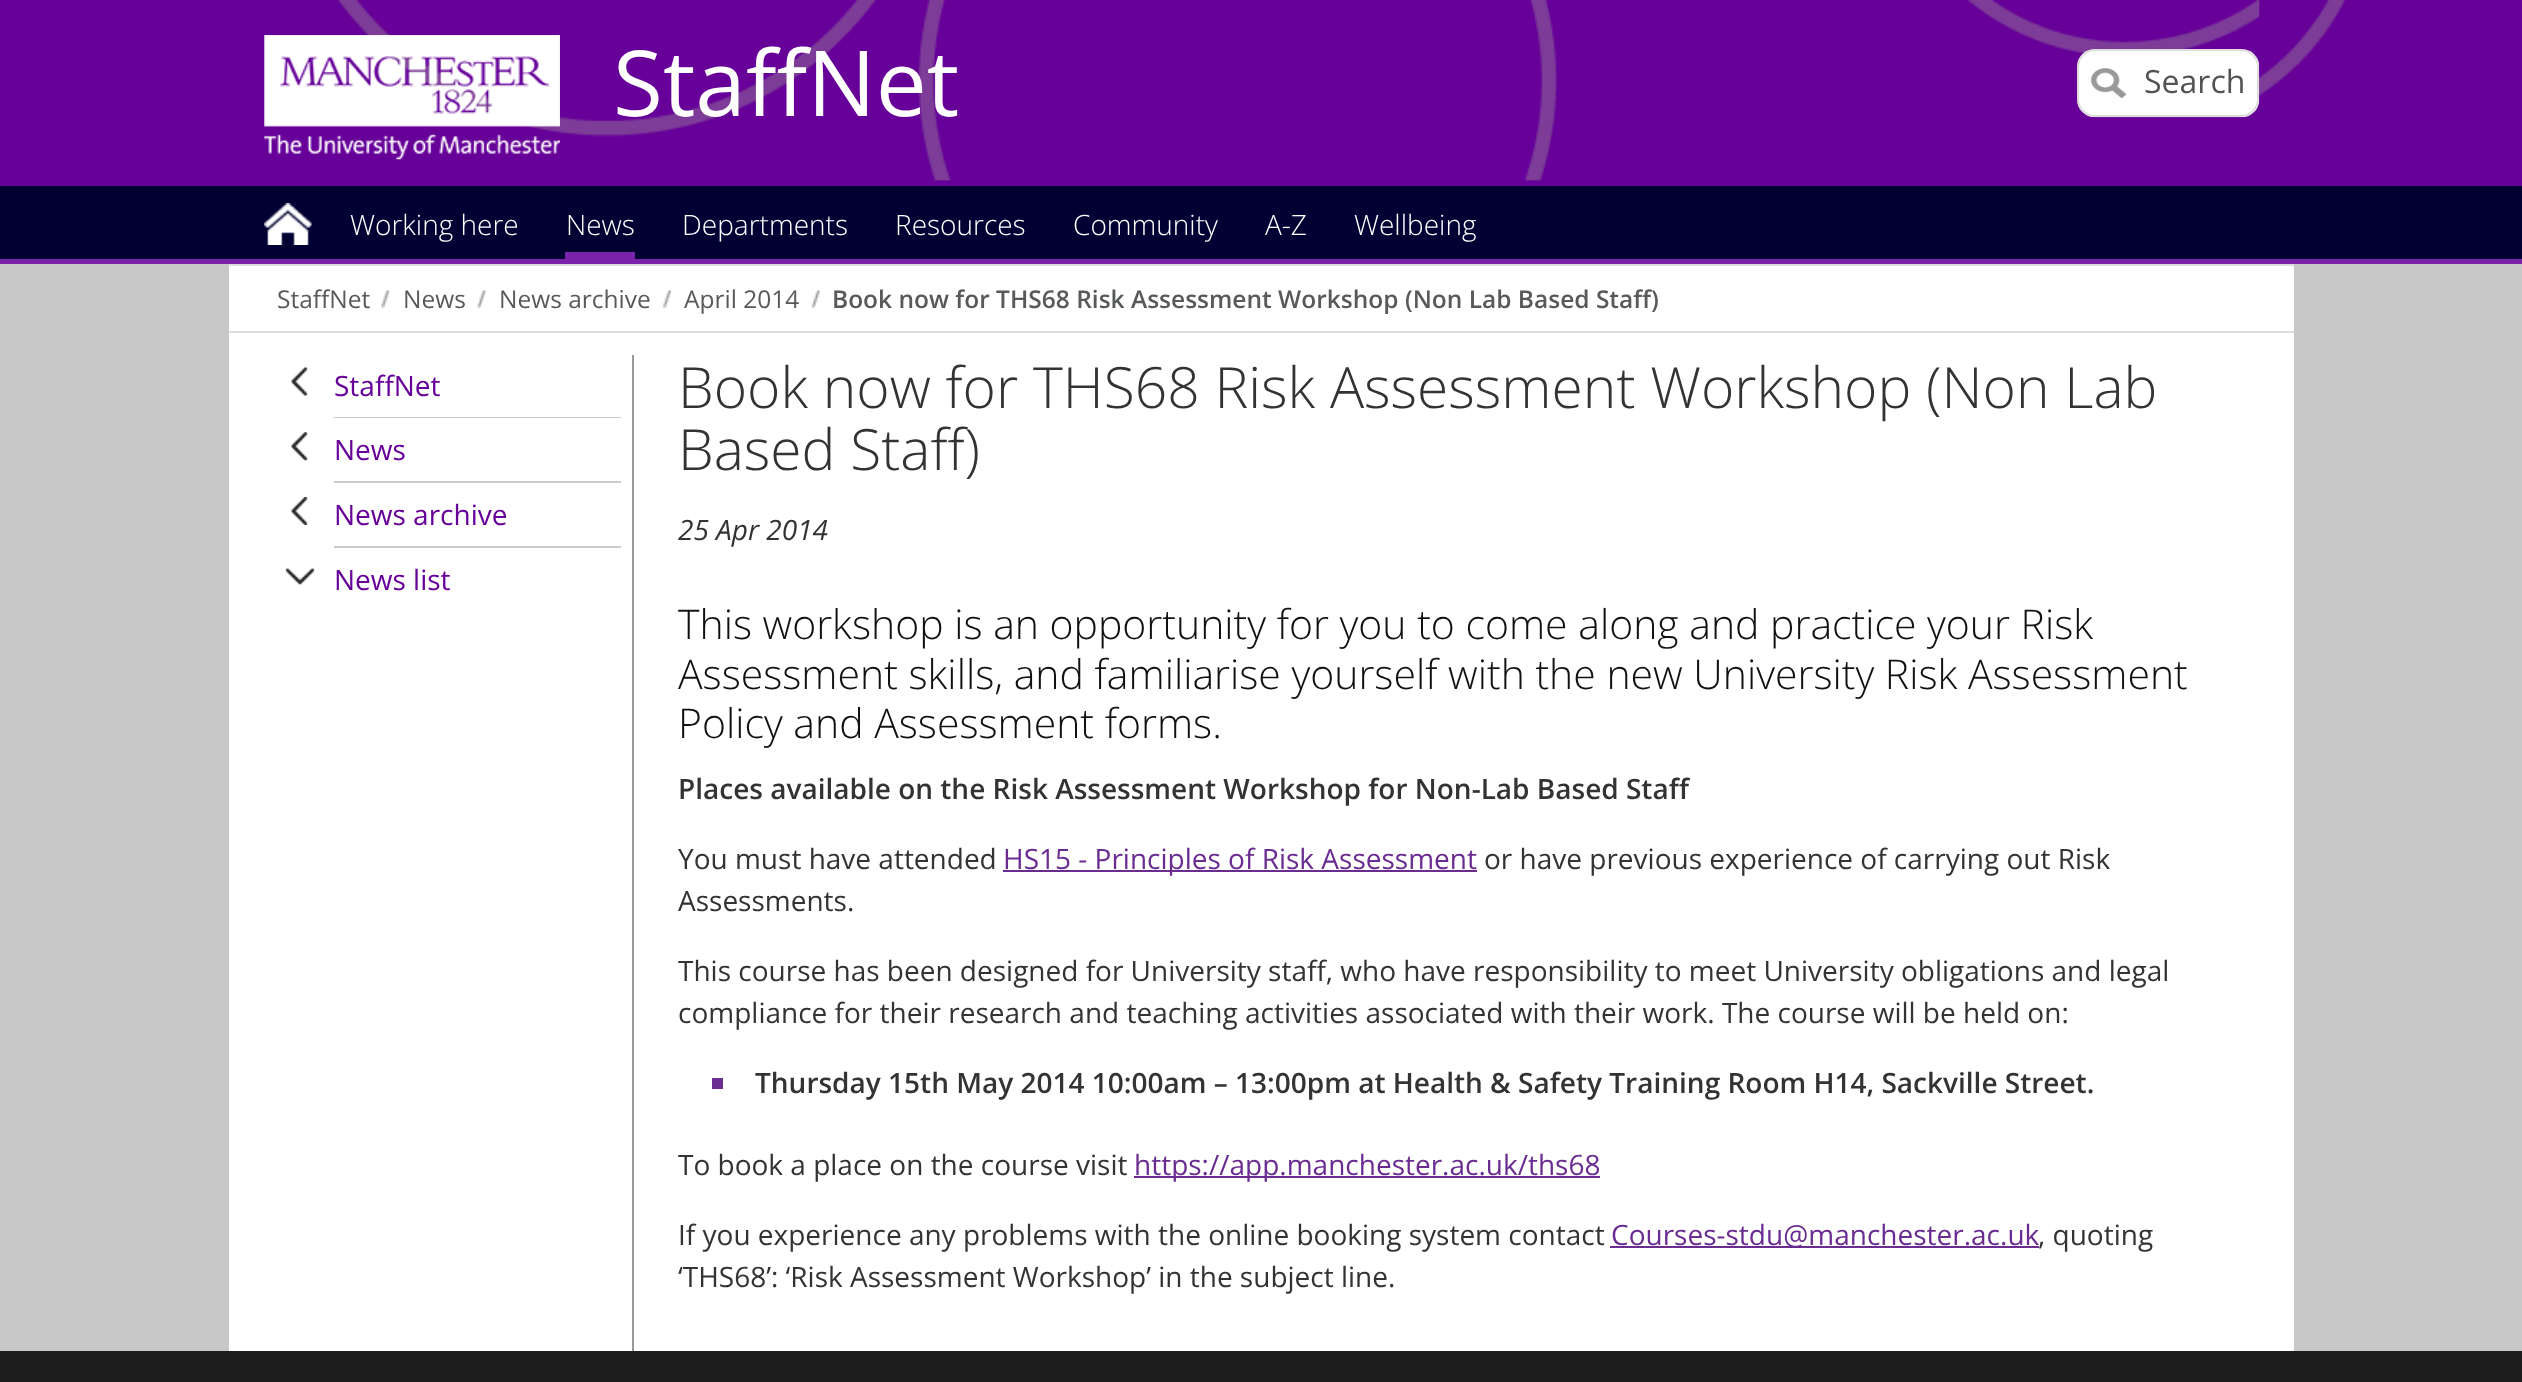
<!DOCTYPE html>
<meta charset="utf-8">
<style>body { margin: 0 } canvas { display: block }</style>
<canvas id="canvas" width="2522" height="1382"></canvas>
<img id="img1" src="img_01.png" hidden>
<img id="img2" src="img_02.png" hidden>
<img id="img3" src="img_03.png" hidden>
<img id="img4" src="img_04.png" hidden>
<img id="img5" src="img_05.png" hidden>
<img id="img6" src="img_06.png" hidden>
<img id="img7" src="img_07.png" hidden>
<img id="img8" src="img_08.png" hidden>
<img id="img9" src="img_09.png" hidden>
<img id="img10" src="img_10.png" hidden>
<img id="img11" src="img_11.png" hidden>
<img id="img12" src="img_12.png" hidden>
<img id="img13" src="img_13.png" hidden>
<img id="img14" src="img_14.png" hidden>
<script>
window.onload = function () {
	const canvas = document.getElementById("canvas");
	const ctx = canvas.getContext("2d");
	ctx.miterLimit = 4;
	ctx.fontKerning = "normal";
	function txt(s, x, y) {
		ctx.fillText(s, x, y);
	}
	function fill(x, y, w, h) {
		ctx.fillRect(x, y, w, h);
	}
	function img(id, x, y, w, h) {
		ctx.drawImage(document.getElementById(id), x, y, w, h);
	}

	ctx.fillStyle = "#660099";
	fill(0, 0, 2522, 1382);
	img("img1", 2259, 0, 87, 97);
	img("img2", 337, 0, 1923, 181);
	img("img3", 264, 35, 296, 125);
	img("img4", 2077, 50, 183, 68);
	ctx.beginPath();
	ctx.roundRect(2078, 50, 180, 66, 17);
	ctx.strokeStyle = "#DDDDDD";
	ctx.lineWidth = 2;
	ctx.stroke();
	img("img5", 2091, 68, 36, 30);
	ctx.fillStyle = "#000033";
	fill(0, 186, 2522, 73);
	ctx.fillStyle = "#7B22AA";
	fill(0, 259, 2522, 5);
	img("img6", 264, 203, 48, 42);
	fill(565, 252, 70, 7);
	ctx.fillStyle = "#C7C7C7";
	fill(0, 264, 2522, 1087);
	ctx.fillStyle = "#FFFFFF";
	fill(229, 266, 2065, 65);
	ctx.fillStyle = "#DDDDDD";
	fill(229, 264, 2065, 2);
	fill(229, 331, 2065, 2);
	img("img7", 381, 290, 10, 18);
	img("img8", 477, 290, 10, 18);
	img("img9", 662, 290, 10, 18);
	img("img10", 811, 290, 10, 18);
	ctx.fillStyle = "#FFFFFF";
	fill(229, 333, 2065, 1018);
	img("img11", 291, 367, 17, 29);
	ctx.fillStyle = "#CCCCCC";
	fill(334, 417, 287, 1);
	img("img12", 291, 432, 17, 29);
	fill(334, 481, 287, 2);
	img("img13", 291, 497, 17, 28);
	fill(334, 546, 287, 2);
	img("img14", 285, 568, 30, 17);
	ctx.fillStyle = "#999999";
	fill(632, 355, 2, 996);
	ctx.fillStyle = "#6B2C91";
	fill(1003, 870, 474, 2);
	ctx.fillStyle = "#6C2F91";
	fill(712, 1078, 11, 11);
	ctx.fillStyle = "#6B2C91";
	fill(1134, 1176, 466, 2);
	fill(1610, 1246, 429, 2);
	ctx.fillStyle = "#1D1D1D";
	fill(0, 1351, 2522, 31);
	ctx.font = "91px Open Sans";
	ctx.fillStyle = "#FFFFFF";
	txt("StaffNet", 613, 116);
	ctx.font = "32px Open Sans";
	ctx.fillStyle = "#525355";
	txt("Search", 2144, 93);
	ctx.font = "300 28px Open Sans";
	ctx.fillStyle = "#FFFFFF";
	txt("Working here", 350, 235);
	txt("News", 566, 235);
	txt("Departments", 682, 235);
	txt("Resources", 895, 235);
	txt("Community", 1073, 235);
	txt("A-Z", 1265, 235);
	txt("Wellbeing", 1354, 235);
	ctx.font = "24.5px Open Sans";
	ctx.fillStyle = "#57595A";
	txt("StaffNet", 277, 308);
	txt("News", 403, 308);
	txt("News archive", 499, 308);
	txt("April 2014", 684, 308);
	ctx.font = "600 24.5px Open Sans";
	txt("Book now for THS68 Risk Assessment Workshop (Non Lab Based Staff)", 832, 308);
	ctx.font = "28px Open Sans";
	ctx.fillStyle = "#660099";
	txt("StaffNet", 334, 396);
	txt("News", 334, 460);
	txt("News archive", 334, 525);
	txt("News list", 334, 590);
	ctx.font = "300 56.9px Open Sans";
	ctx.fillStyle = "#333333";
	txt("Book now for THS68 Risk Assessment Workshop (Non Lab", 678, 408);
	txt("Based Staff)", 678, 470);
	ctx.font = "italic 28px Open Sans";
	txt("25 Apr 2014", 678, 540);
	ctx.font = "300 40.95px Open Sans";
	ctx.fillStyle = "#111111";
	txt("This workshop is an opportunity for you to come along and practice your Risk", 678, 639);
	txt("Assessment skills, and familiarise yourself with the new University Risk Assessment", 678, 689);
	txt("Policy and Assessment forms.", 678, 738);
	ctx.font = "600 28px Open Sans";
	ctx.fillStyle = "#333333";
	txt("Places available on the Risk Assessment Workshop for Non-Lab Based Staff", 678, 799);
	ctx.font = "28px Open Sans";
	txt("You must have attended", 678, 869);
	ctx.fillStyle = "#6B2C91";
	txt("HS15 - Principles of Risk Assessment", 1003, 869);
	ctx.fillStyle = "#333333";
	txt("or have previous experience of carrying out Risk", 1484, 869);
	txt("Assessments.", 678, 911);
	txt("This course has been designed for University staff, who have responsibility to meet University obligations and legal", 678, 981);
	txt("compliance for their research and teaching activities associated with their work. The course will be held on:", 678, 1023);
	ctx.font = "600 28px Open Sans";
	txt("Thursday 15th May 2014 10:00am – 13:00pm at Health & Safety Training Room H14, Sackville Street.", 755, 1093);
	ctx.font = "28px Open Sans";
	txt("To book a place on the course visit", 678, 1175);
	ctx.fillStyle = "#6B2C91";
	txt("https://app.manchester.ac.uk/ths68", 1134, 1175);
	ctx.fillStyle = "#333333";
	txt("If you experience any problems with the online booking system contact", 678, 1245);
	ctx.fillStyle = "#6B2C91";
	txt("Courses-stdu@manchester.ac.uk", 1611, 1245);
	ctx.fillStyle = "#333333";
	txt(", quoting", 2038, 1245);
	txt("‘THS68’: ‘Risk Assessment Workshop’ in the subject line.", 678, 1287);
};
</script>
